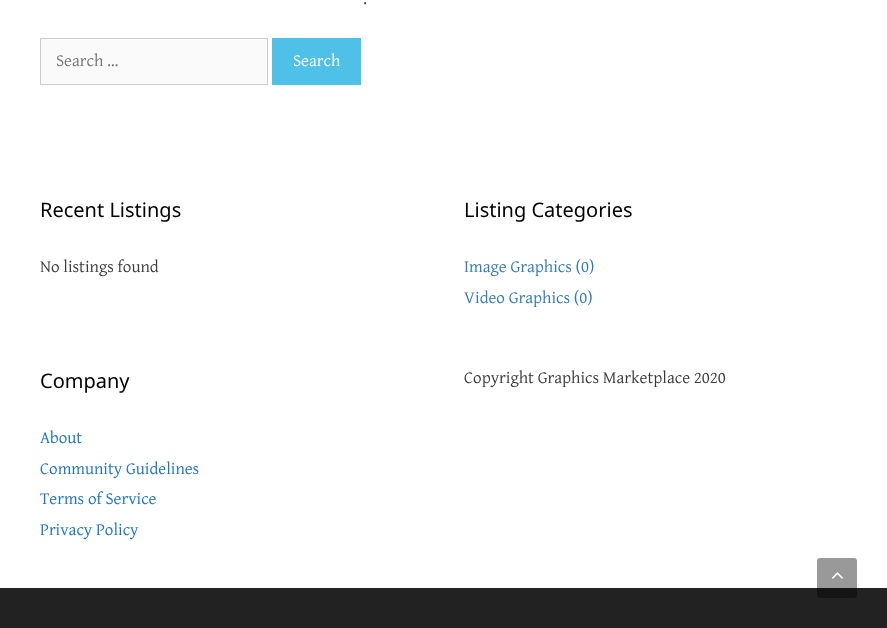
<!DOCTYPE html>
<meta charset="utf-8">
<style>body { margin: 0 } canvas { display: block }</style>
<canvas id="canvas" width="887" height="628"></canvas>
<img id="img1" src="img_01.png" hidden>
<script>
window.onload = function () {
	const canvas = document.getElementById("canvas");
	const ctx = canvas.getContext("2d");
	ctx.miterLimit = 4;
	ctx.fontKerning = "normal";
	function txt(s, x, y) {
		ctx.fillText(s, x, y);
	}
	function fill(x, y, w, h) {
		ctx.fillRect(x, y, w, h);
	}
	function round(x, y, w, h, r) {
		ctx.beginPath();
		ctx.roundRect(x, y, w, h, r);
		ctx.fill();
	}
	function img(id, x, y, w, h) {
		ctx.drawImage(document.getElementById(id), x, y, w, h);
	}

	ctx.fillStyle = "#FFFFFF";
	fill(0, 0, 887, 628);
	ctx.fillStyle = "#FAFAFA";
	ctx.beginPath();
	ctx.rect(40.5, 38.5, 227, 46);
	ctx.fill();
	ctx.strokeStyle = "#CCCCCC";
	ctx.stroke();
	ctx.fillStyle = "#4FC1E9";
	fill(272, 38, 89, 47);
	ctx.fillStyle = "#222222";
	fill(0, 588, 887, 40);
	ctx.fillStyle = "rgba(0, 0, 0, 0.4)";
	round(817, 558, 40, 40, 3);
	img("img1", 832, 572, 11, 7);
	ctx.font = "17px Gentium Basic";
	ctx.fillStyle = "#3A3A3A";
	txt(".", 363, 4);
	ctx.fillStyle = "#757575";
	txt("Search …", 56, 66);
	ctx.fillStyle = "#FFFFFF";
	txt("Search", 293, 66);
	ctx.font = "20px Noto Sans";
	ctx.fillStyle = "#000000";
	txt("Recent Listings", 40, 217);
	ctx.font = "17px Gentium Basic";
	ctx.fillStyle = "#3A3A3A";
	txt("No listings found", 40, 272);
	ctx.font = "20px Noto Sans";
	ctx.fillStyle = "#000000";
	txt("Listing Categories", 464, 217);
	ctx.font = "17px Gentium Basic";
	ctx.fillStyle = "#337AB7";
	txt("Image Graphics (0)", 464, 272);
	txt("Video Graphics (0)", 464, 303);
	ctx.font = "20px Noto Sans";
	ctx.fillStyle = "#000000";
	txt("Company", 40, 388);
	ctx.font = "17px Gentium Basic";
	ctx.fillStyle = "#1E73BE";
	txt("About", 40, 443);
	txt("Community Guidelines", 40, 474);
	txt("Terms of Service", 40, 504);
	txt("Privacy Policy", 40, 535);
	ctx.fillStyle = "#3A3A3A";
	txt("Copyright Graphics Marketplace 2020", 464, 383);
};
</script>
